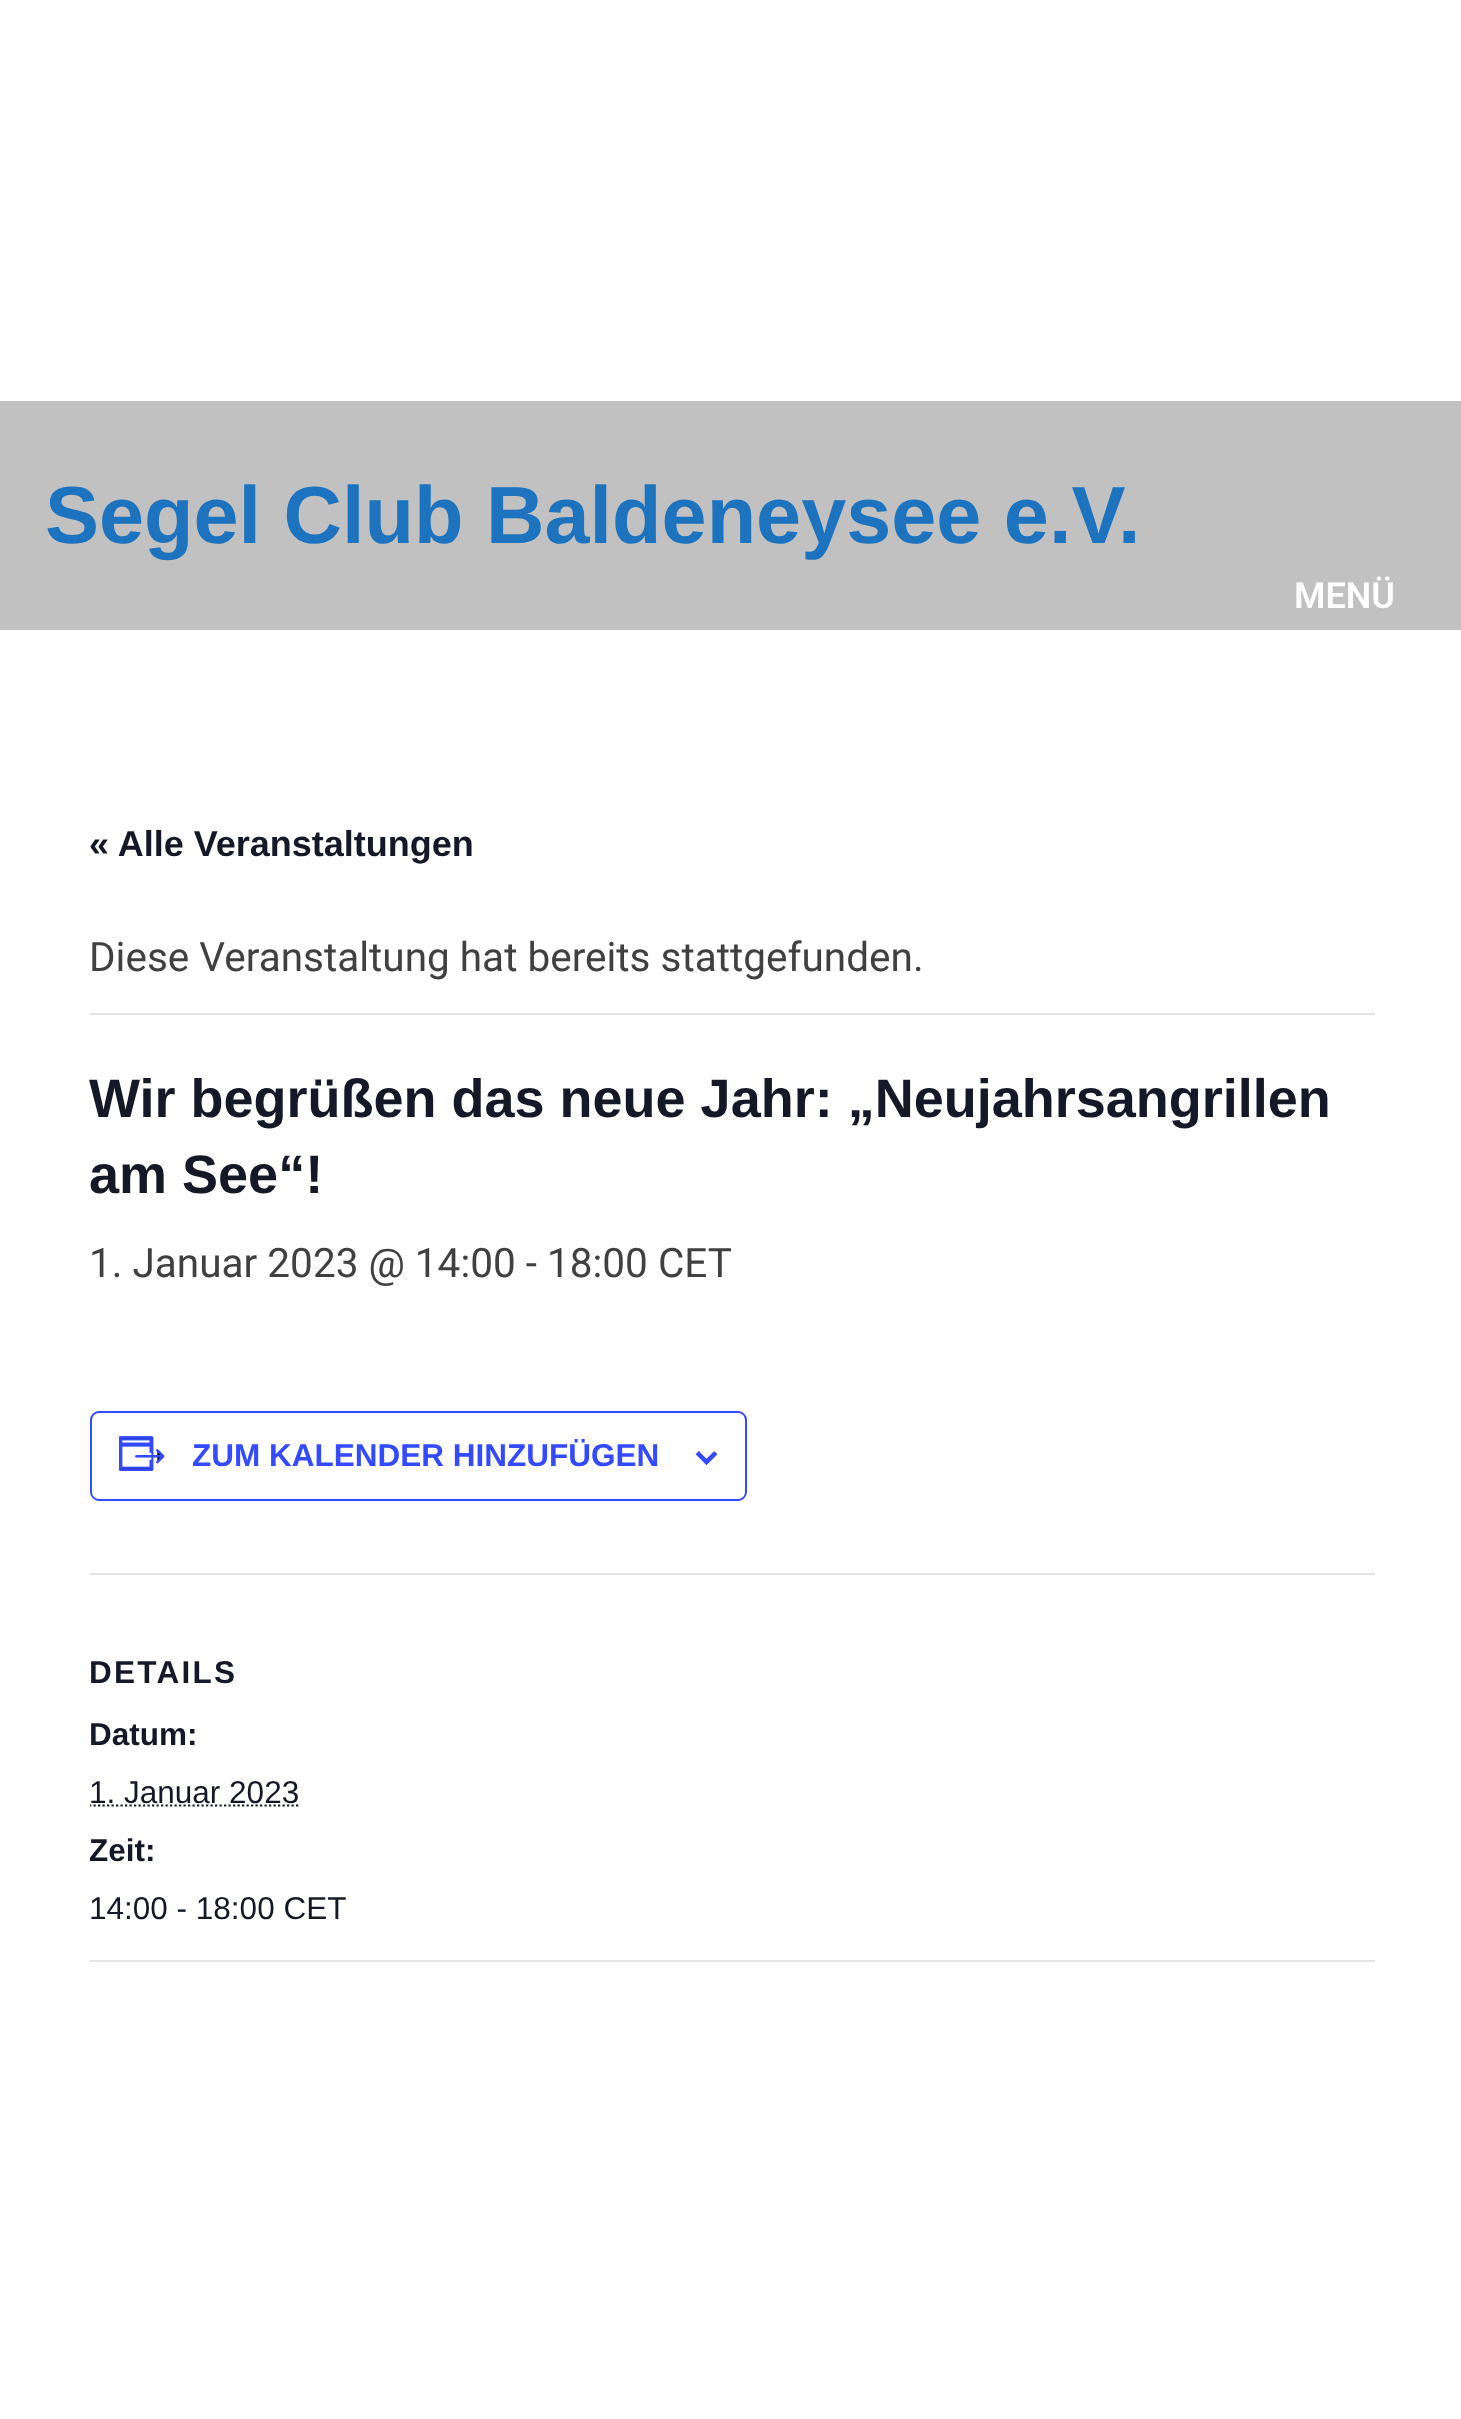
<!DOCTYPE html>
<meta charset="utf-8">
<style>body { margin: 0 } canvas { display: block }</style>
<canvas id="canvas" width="1461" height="2419"></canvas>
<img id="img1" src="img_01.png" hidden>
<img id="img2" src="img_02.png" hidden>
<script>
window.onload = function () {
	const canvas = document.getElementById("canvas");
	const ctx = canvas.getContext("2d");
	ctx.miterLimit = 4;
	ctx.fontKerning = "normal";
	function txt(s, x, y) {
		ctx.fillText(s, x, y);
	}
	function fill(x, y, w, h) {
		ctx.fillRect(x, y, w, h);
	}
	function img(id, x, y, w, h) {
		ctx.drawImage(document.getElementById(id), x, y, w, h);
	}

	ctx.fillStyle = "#FFFFFF";
	fill(0, 0, 1461, 2419);
	ctx.fillStyle = "#C1C1C1";
	fill(0, 401, 1461, 229);
	ctx.fillStyle = "#E4E4E4";
	fill(90, 1013, 1285, 2);
	ctx.beginPath();
	ctx.roundRect(91, 1412, 655, 88, 8);
	ctx.strokeStyle = "#334AFF";
	ctx.lineWidth = 2;
	ctx.stroke();
	img("img1", 119, 1436, 46, 35);
	img("img2", 695, 1451, 23, 14);
	fill(90, 1573, 1285, 2);
	ctx.save();
	ctx.beginPath();
	ctx.rect(90, 1339, 1285, 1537);
	ctx.clip();
	ctx.beginPath();
	ctx.moveTo(89, 1805.5);
	ctx.lineTo(299, 1805.5);
	ctx.strokeStyle = "#141827";
	ctx.lineWidth = 2.2;
	ctx.setLineDash([2.25, 2.25]);
	ctx.stroke();
	ctx.restore();
	fill(90, 1960, 1285, 2);
	ctx.font = "bold 81px Liberation Sans";
	ctx.fillStyle = "#1E73BE";
	txt("Segel Club Baldeneysee e.V.", 45, 543);
	ctx.font = "600 36px Roboto";
	ctx.fillStyle = "#FFFFFF";
	txt("MENÜ", 1294, 608);
	ctx.font = "bold 36px Liberation Sans";
	ctx.fillStyle = "#141827";
	txt("« Alle Veranstaltungen", 89, 856);
	ctx.font = "40.5px Roboto";
	ctx.fillStyle = "#404040";
	txt("Diese Veranstaltung hat bereits stattgefunden.", 89, 971);
	ctx.font = "bold 54px Liberation Sans";
	ctx.fillStyle = "#141827";
	txt("Wir begrüßen das neue Jahr: „Neujahrsangrillen", 89, 1117);
	txt("am See“!", 89, 1193);
	ctx.font = "40.5px Roboto";
	ctx.fillStyle = "#404040";
	txt("1. Januar 2023 @ 14:00 - 18:00 CET", 89, 1277);
	ctx.font = "bold 31.5px Liberation Sans";
	ctx.fillStyle = "#334AFF";
	txt("ZUM KALENDER HINZUFÜGEN", 192, 1466);
	ctx.letterSpacing = "2.25px";
	ctx.fillStyle = "#141827";
	txt("DETAILS", 89, 1683);
	ctx.letterSpacing = "0px";
	txt("Datum:", 89, 1745);
	ctx.font = "31.5px Liberation Sans";
	txt("1. Januar 2023", 89, 1803);
	ctx.save();
	ctx.beginPath();
	ctx.rect(90, 1339, 1285, 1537);
	ctx.clip();
	ctx.font = "bold 31.5px Liberation Sans";
	txt("Zeit:", 89, 1861);
	ctx.restore();
	txt("14:00 - 18:00 CET", 89, 1919);
};
</script>
